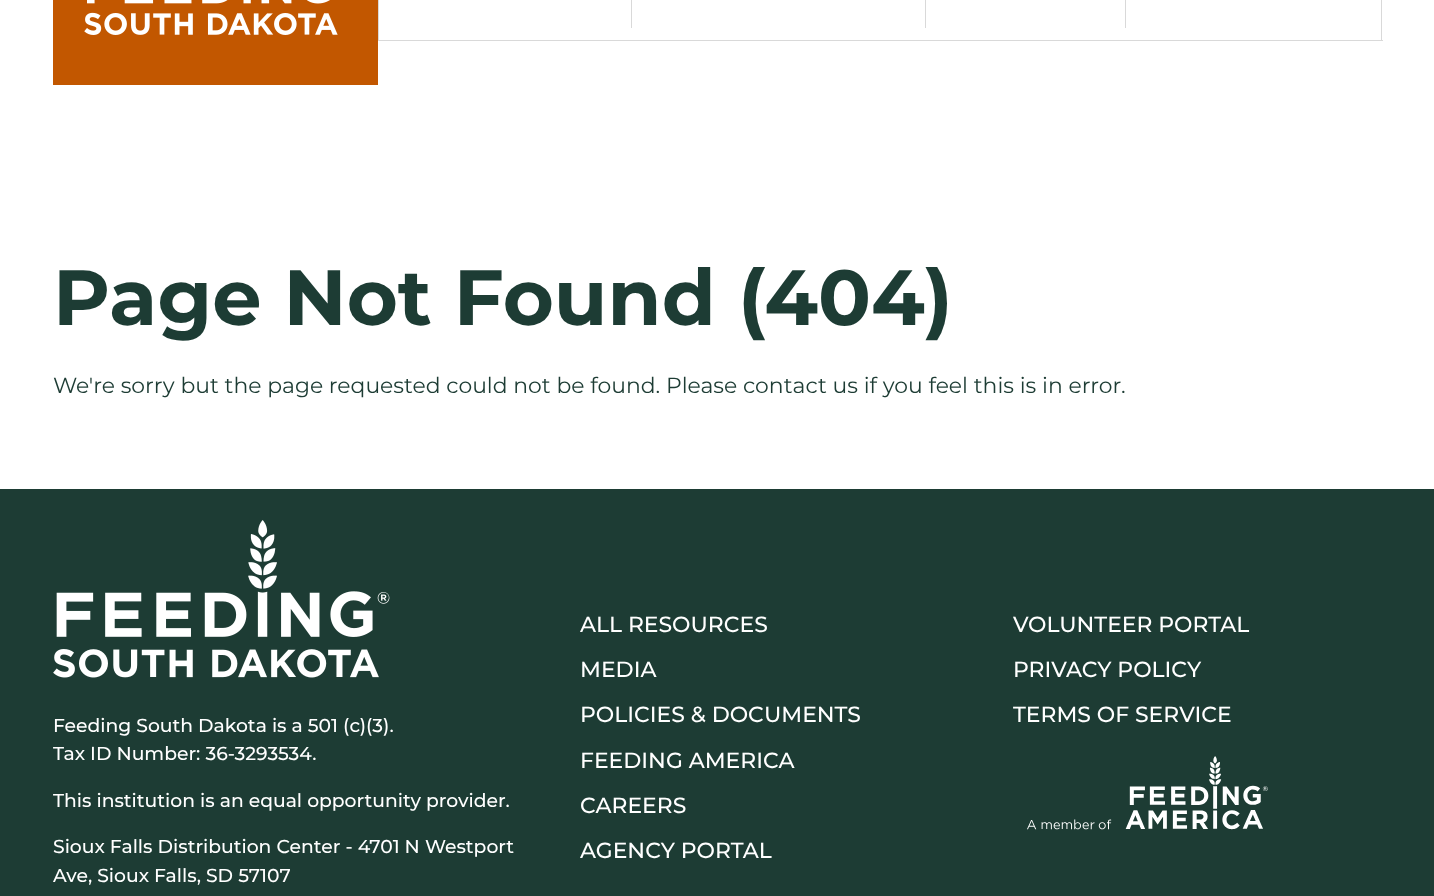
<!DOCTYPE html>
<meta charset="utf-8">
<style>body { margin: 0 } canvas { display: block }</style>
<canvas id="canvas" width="1434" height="896"></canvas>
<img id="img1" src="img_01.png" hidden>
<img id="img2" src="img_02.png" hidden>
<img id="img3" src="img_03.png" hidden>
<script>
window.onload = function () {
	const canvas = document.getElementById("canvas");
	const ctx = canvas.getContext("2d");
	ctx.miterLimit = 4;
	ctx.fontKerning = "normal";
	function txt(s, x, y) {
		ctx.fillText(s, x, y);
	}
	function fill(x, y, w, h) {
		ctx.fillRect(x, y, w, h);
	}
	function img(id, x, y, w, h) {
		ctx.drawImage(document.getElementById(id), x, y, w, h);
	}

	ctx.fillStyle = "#FFFFFF";
	fill(0, 0, 1434, 896);
	ctx.fillStyle = "#C25700";
	fill(53, 0, 325, 85);
	img("img1", 84, 0, 254, 35);
	ctx.fillStyle = "#D9D9D9";
	fill(1381, 0, 1, 41);
	fill(378, 40, 1005, 1);
	fill(378, 0, 1, 41);
	fill(631, 0, 1, 28);
	fill(925, 0, 1, 28);
	fill(1125, 0, 1, 28);
	ctx.fillStyle = "#1D3C34";
	fill(0, 489, 1434, 407);
	img("img2", 53, 520, 337, 158);
	img("img3", 1027, 756, 241, 74);
	ctx.font = "bold 78.1px Montserrat";
	txt("Page Not Found (404)", 53, 325);
	ctx.font = "21.9px Montserrat";
	txt("We're sorry but the page requested could not be found. Please contact us if you feel this is in error.", 53, 393);
	ctx.font = "500 18.75px Montserrat";
	ctx.fillStyle = "#FFFFFF";
	txt("Feeding South Dakota is a 501 (c)(3).", 53, 732);
	txt("Tax ID Number: 36-3293534.", 53, 760);
	txt("This institution is an equal opportunity provider.", 53, 807);
	txt("Sioux Falls Distribution Center - 4701 N Westport", 53, 853);
	txt("Ave, Sioux Falls, SD 57107", 53, 882);
	ctx.font = "500 21.9px Montserrat";
	txt("ALL RESOURCES", 580, 632);
	txt("VOLUNTEER PORTAL", 1013, 632);
	txt("MEDIA", 580, 677);
	txt("PRIVACY POLICY", 1013, 677);
	txt("POLICIES & DOCUMENTS", 580, 722);
	txt("TERMS OF SERVICE", 1013, 722);
	txt("FEEDING AMERICA", 580, 768);
	txt("CAREERS", 580, 813);
	txt("AGENCY PORTAL", 580, 858);
};
</script>
